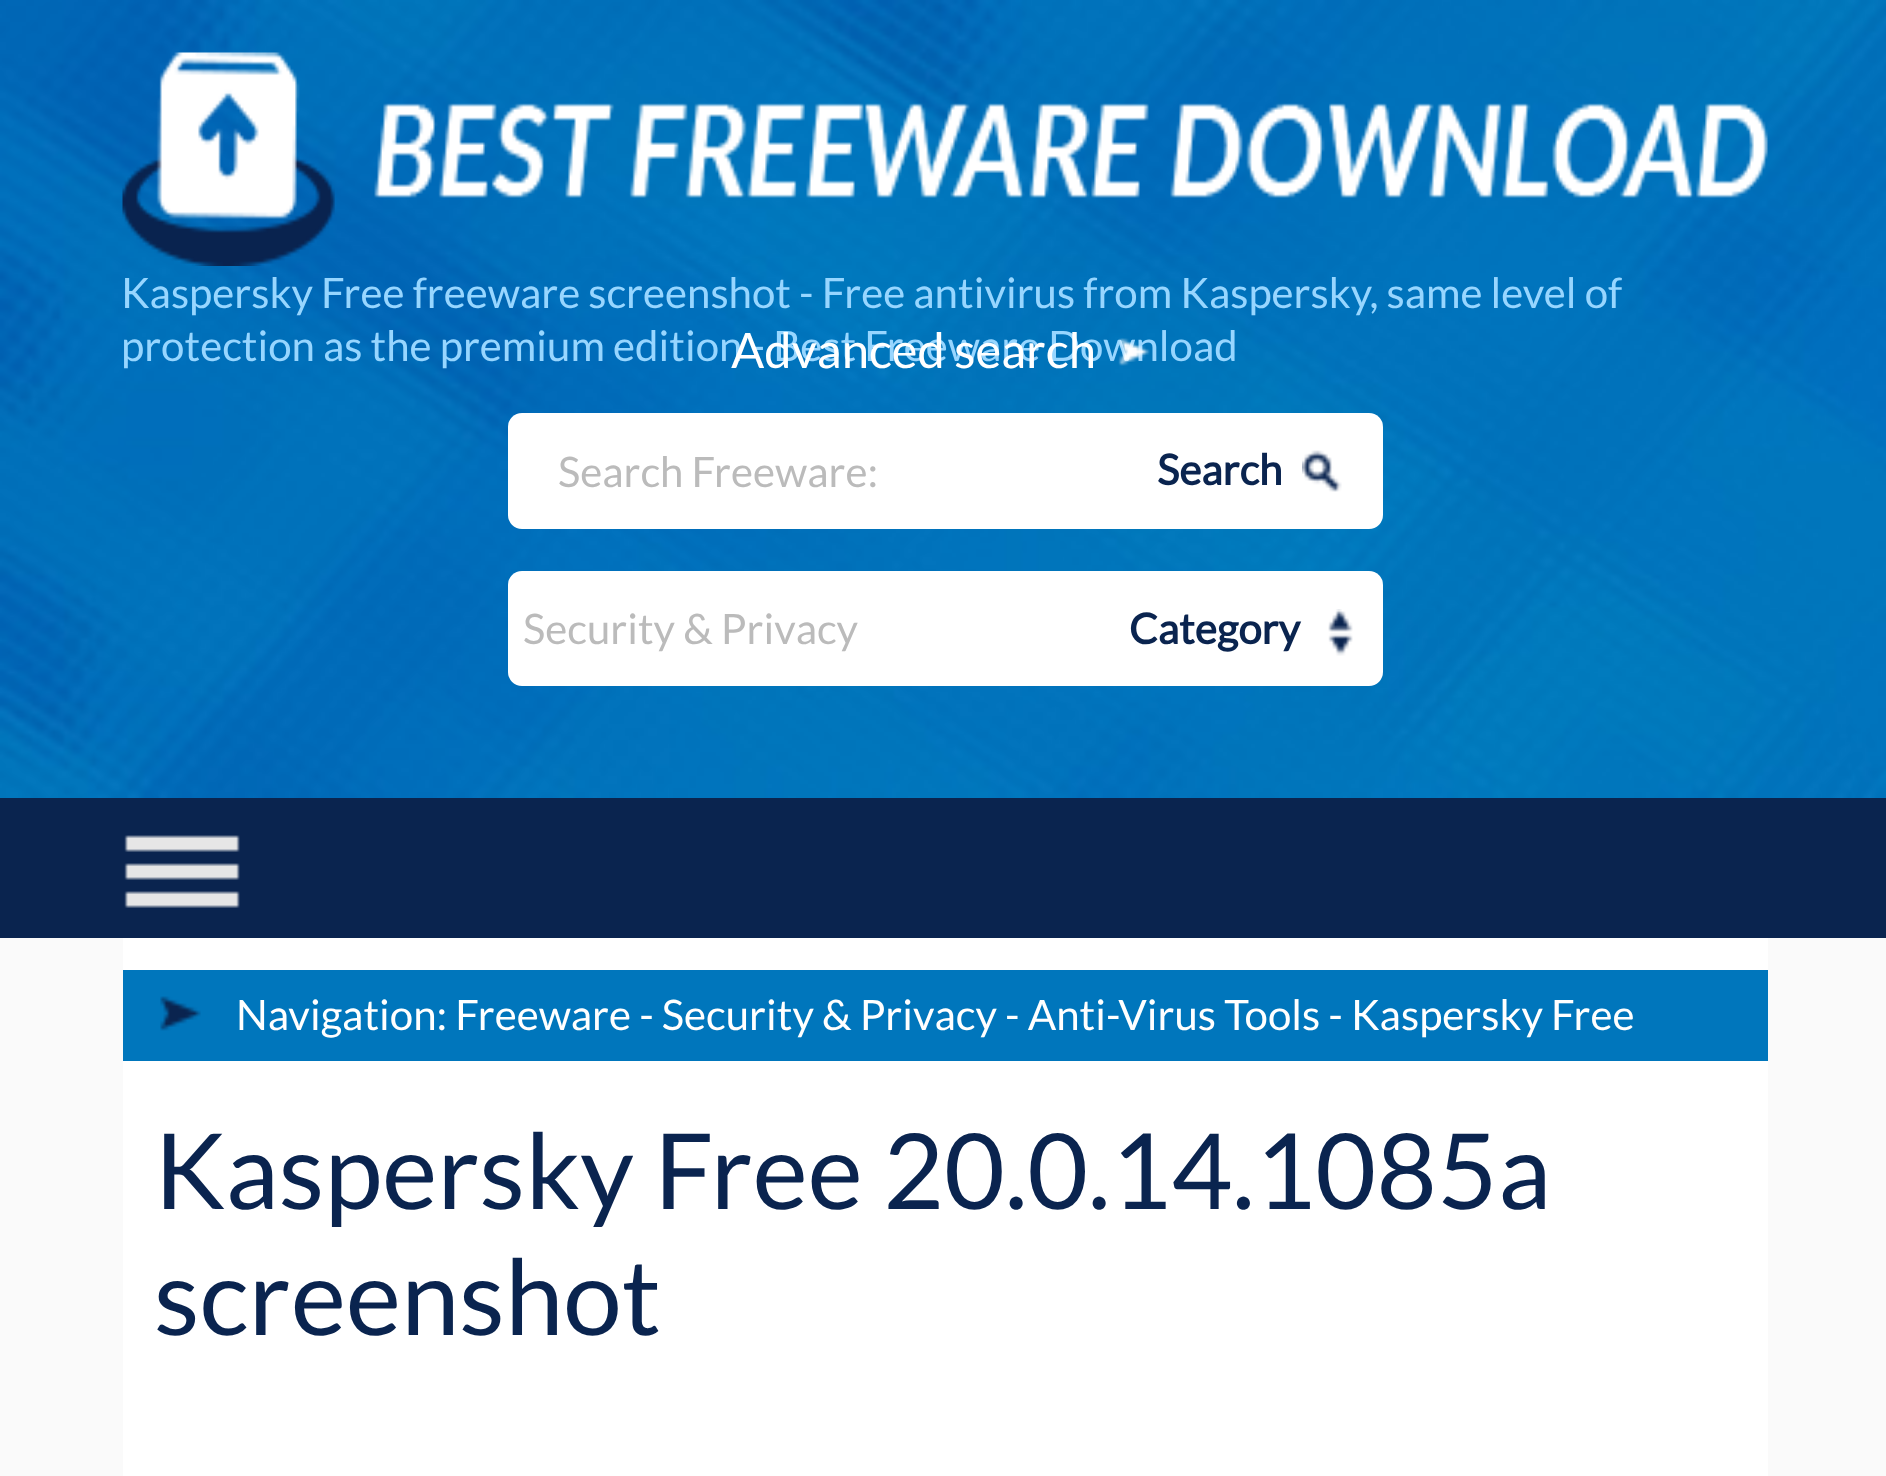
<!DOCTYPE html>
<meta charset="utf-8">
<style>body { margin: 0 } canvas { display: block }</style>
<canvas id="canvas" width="1886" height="1476"></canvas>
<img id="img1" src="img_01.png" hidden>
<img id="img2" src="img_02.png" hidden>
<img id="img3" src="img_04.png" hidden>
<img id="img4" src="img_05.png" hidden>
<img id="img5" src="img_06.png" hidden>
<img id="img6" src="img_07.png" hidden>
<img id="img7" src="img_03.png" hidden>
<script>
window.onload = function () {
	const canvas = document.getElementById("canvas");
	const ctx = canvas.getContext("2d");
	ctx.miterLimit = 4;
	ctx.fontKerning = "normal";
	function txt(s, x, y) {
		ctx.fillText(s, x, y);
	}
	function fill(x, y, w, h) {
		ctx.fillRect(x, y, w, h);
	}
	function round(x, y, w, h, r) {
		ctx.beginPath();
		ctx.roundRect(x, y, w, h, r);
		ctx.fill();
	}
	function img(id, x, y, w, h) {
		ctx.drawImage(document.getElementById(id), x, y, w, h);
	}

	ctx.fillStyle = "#FAFAFA";
	fill(0, 0, 1886, 1476);
	img("img1", 0, 0, 1886, 798);
	img("img2", 122, 52, 1646, 214);
	ctx.fillStyle = "#FFFFFF";
	ctx.beginPath();
	ctx.roundRect(508, 413, 630, 116, [14, 0, 0, 14]);
	ctx.fill();
	ctx.beginPath();
	ctx.roundRect(1138, 413, 245, 116, [0, 14, 14, 0]);
	ctx.fill();
	img("img3", 1302, 450, 40, 42);
	round(508, 571, 875, 115, 14);
	img("img4", 1328, 609, 25, 47);
	ctx.fillStyle = "#0A244F";
	fill(0, 798, 1886, 140);
	img("img5", 124, 835, 116, 73);
	ctx.fillStyle = "#FFFFFF";
	fill(123, 938, 1645, 538);
	ctx.fillStyle = "#0076BC";
	fill(123, 970, 1645, 91);
	img("img6", 160, 996, 41, 35);
	ctx.font = "42px Lato";
	ctx.fillStyle = "#97D6FF";
	txt("Kaspersky Free freeware screenshot - Free antivirus from Kaspersky, same level of", 121, 308);
	txt("protection as the premium edition - Best Freeware Download", 121, 361);
	ctx.font = "49px Lato";
	ctx.fillStyle = "#FFFFFF";
	txt("Advanced search", 731, 368);
	img("img7", 1118, 338, 32, 28);
	ctx.font = "42px Lato";
	ctx.fillStyle = "#BBBBBB";
	txt("Search Freeware:", 558, 487);
	ctx.font = "bold 42px Lato";
	ctx.fillStyle = "#0A244F";
	txt("Search", 1157, 485);
	ctx.font = "42px Lato";
	ctx.fillStyle = "#BBBBBB";
	txt("Security & Privacy", 523, 644);
	ctx.font = "bold 42px Lato";
	ctx.fillStyle = "#0A244F";
	txt("Category", 1129, 644);
	ctx.font = "42px Lato";
	ctx.fillStyle = "#FFFFFF";
	txt("Navigation: Freeware - Security & Privacy - Anti-Virus Tools - Kaspersky Free", 236, 1030);
	ctx.font = "105px Lato";
	ctx.fillStyle = "#0A244F";
	txt("Kaspersky Free 20.0.14.1085a", 154, 1209);
	txt("screenshot", 154, 1335);
};
</script>
